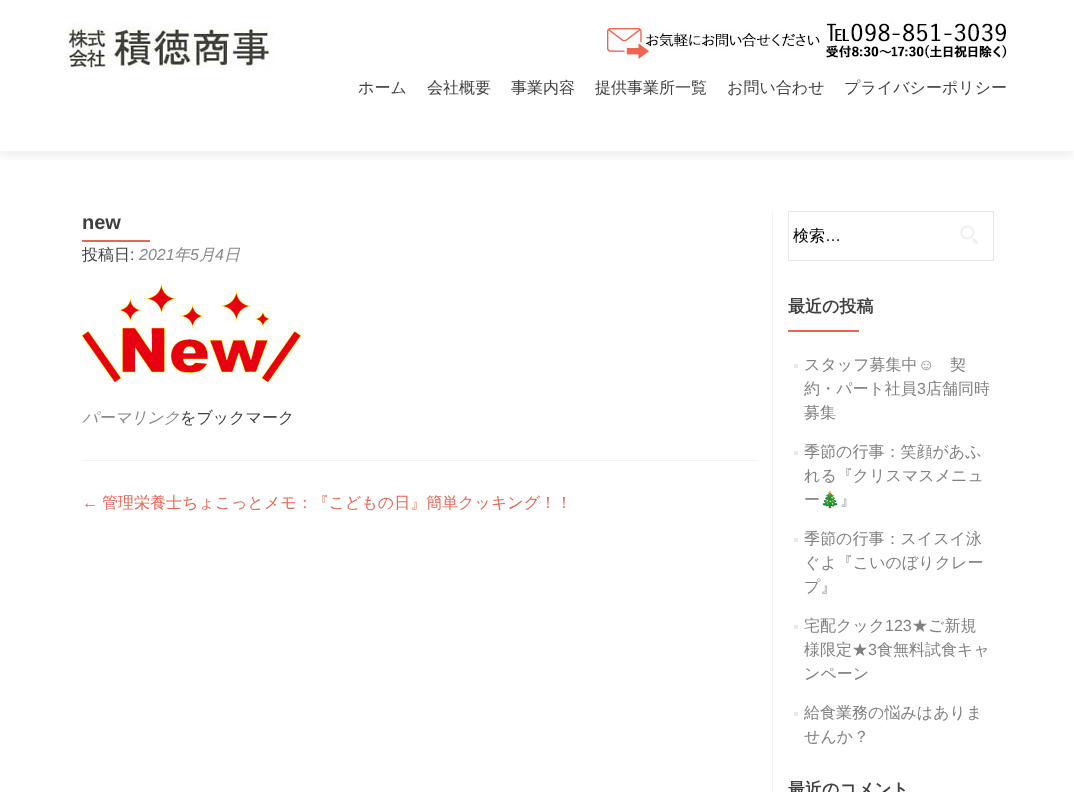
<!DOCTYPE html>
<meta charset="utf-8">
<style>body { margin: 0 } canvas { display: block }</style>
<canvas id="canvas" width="1074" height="792"></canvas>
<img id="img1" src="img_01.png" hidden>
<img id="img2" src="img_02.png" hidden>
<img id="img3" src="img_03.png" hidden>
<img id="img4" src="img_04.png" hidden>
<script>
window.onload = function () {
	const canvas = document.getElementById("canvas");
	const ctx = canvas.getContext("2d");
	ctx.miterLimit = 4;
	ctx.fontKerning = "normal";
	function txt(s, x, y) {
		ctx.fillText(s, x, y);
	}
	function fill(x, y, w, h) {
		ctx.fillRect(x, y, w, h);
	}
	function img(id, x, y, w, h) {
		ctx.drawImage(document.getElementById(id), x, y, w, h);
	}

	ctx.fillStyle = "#FFFFFF";
	fill(0, 0, 1074, 792);
	ctx.save();
	ctx.beginPath();
	ctx.rect(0, 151, 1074, 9);
	ctx.clip();
	ctx.fillStyle = "rgba(50, 50, 50, 0.08)";
	ctx.filter = "blur(5.5px)";
	ctx.beginPath();
	ctx.rect(0, 5, 1074, 151);
	ctx.fill();
	ctx.filter = "none";
	ctx.restore();
	img("img1", 67, 22, 208, 48);
	img("img2", 607, 20, 400, 40);
	ctx.fillStyle = "#F2F2F2";
	fill(82, 460, 675, 1);
	ctx.fillStyle = "#E96656";
	fill(82, 240, 68, 2);
	img("img3", 82, 283, 219, 99);
	ctx.fillStyle = "#F2F2F2";
	fill(772, 211, 1, 581);
	ctx.strokeStyle = "#E6E6E6";
	ctx.strokeRect(788.5, 211.5, 205, 49);
	img("img4", 960, 225, 18, 19);
	ctx.fillStyle = "#E96656";
	fill(788, 330, 71, 2);
	ctx.fillStyle = "#E9E9E9";
	fill(794, 364, 4, 4);
	fill(794, 451, 4, 4);
	fill(794, 538, 4, 4);
	fill(794, 625, 4, 4);
	fill(794, 712, 4, 4);
	ctx.font = "500 16px WenQuanYi Zen Hei";
	ctx.fillStyle = "#404040";
	txt("ホーム", 358, 93);
	txt("会社概要", 427, 93);
	txt("事業内容", 511, 93);
	txt("提供事業所一覧", 595, 93);
	txt("お問い合わせ", 727, 93);
	txt("プライバシーポリシー", 844, 93);
	ctx.font = "bold 20px Liberation Sans";
	txt("new", 82, 229);
	ctx.font = "500 16px WenQuanYi Zen Hei";
	txt("投稿日", 82, 260);
	ctx.font = "16px Liberation Sans";
	txt(":", 130, 260);
	ctx.font = "italic 16px Liberation Sans";
	ctx.fillStyle = "#888888";
	txt("2021", 139, 260);
	ctx.font = "italic 500 16px WenQuanYi Zen Hei";
	txt("年", 174, 260);
	ctx.font = "italic 16px Liberation Sans";
	txt("5", 190, 260);
	ctx.font = "italic 500 16px WenQuanYi Zen Hei";
	txt("月", 199, 260);
	ctx.font = "italic 16px Liberation Sans";
	txt("4", 215, 260);
	ctx.font = "italic 500 16px WenQuanYi Zen Hei";
	txt("日", 224, 260);
	txt("パーマリンク", 82, 423);
	ctx.font = "500 16px WenQuanYi Zen Hei";
	ctx.fillStyle = "#404040";
	txt("をブックマーク", 180, 423);
	ctx.font = "16px Liberation Sans";
	ctx.fillStyle = "#E96656";
	txt("←", 82, 508);
	ctx.font = "500 16px WenQuanYi Zen Hei";
	txt("管理栄養士ちょこっとメモ：『こどもの日』簡単クッキング！！", 102, 508);
	ctx.fillStyle = "#000000";
	txt("検索", 793, 241);
	ctx.font = "16px Liberation Sans";
	txt("…", 825, 241);
	ctx.font = "bold 17px WenQuanYi Zen Hei";
	ctx.fillStyle = "#404040";
	txt("最近の投稿", 788, 312);
	ctx.font = "500 16px WenQuanYi Zen Hei";
	ctx.fillStyle = "#808080";
	txt("スタッフ募集中", 804, 370);
	ctx.font = "16px Liberation Sans";
	txt("☺", 918, 370);
	ctx.font = "500 16px WenQuanYi Zen Hei";
	txt("契", 950, 370);
	txt("約・パート社員", 804, 394);
	ctx.font = "16px Liberation Sans";
	txt("3", 917, 394);
	ctx.font = "500 16px WenQuanYi Zen Hei";
	txt("店舗同時", 926, 394);
	txt("募集", 804, 418);
	txt("季節の行事：笑顔があふ", 804, 457);
	txt("れる『クリスマスメニュ", 804, 481);
	txt("ー", 804, 505);
	ctx.font = "16px Noto Color Emoji";
	txt("🎄", 820, 505);
	ctx.font = "500 16px WenQuanYi Zen Hei";
	txt("』", 840, 505);
	txt("季節の行事：スイスイ泳", 804, 544);
	txt("ぐよ『こいのぼりクレー", 804, 568);
	txt("プ』", 804, 592);
	txt("宅配クック", 804, 631);
	ctx.font = "16px Liberation Sans";
	txt("123", 885, 631);
	ctx.font = "500 16px WenQuanYi Zen Hei";
	txt("★ご新規", 912, 631);
	txt("様限定★", 804, 655);
	ctx.font = "16px Liberation Sans";
	txt("3", 868, 655);
	ctx.font = "500 16px WenQuanYi Zen Hei";
	txt("食無料試食キャ", 877, 655);
	txt("ンペーン", 804, 679);
	txt("給食業務の悩みはありま", 804, 718);
	txt("せんか？", 804, 742);
	ctx.font = "bold 17px WenQuanYi Zen Hei";
	ctx.fillStyle = "#404040";
	txt("最近のコメント", 788, 795);
};
</script>
